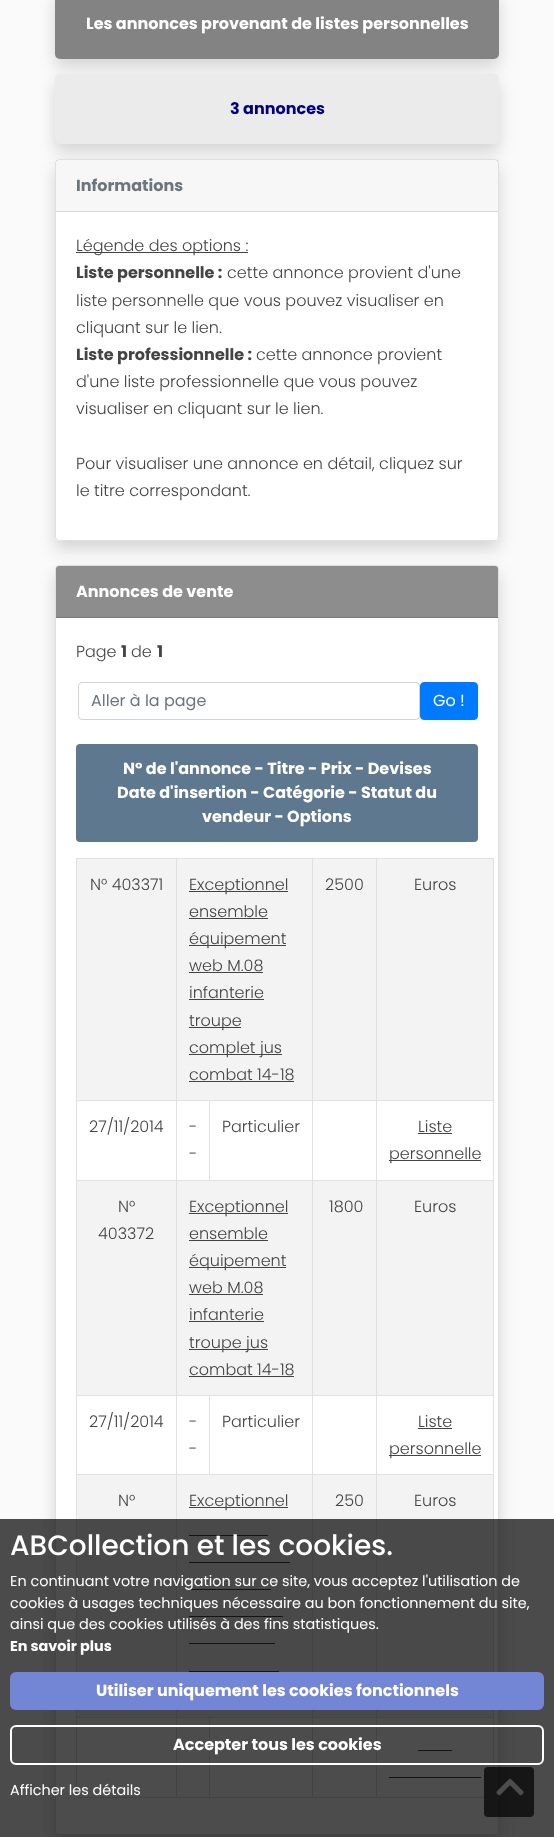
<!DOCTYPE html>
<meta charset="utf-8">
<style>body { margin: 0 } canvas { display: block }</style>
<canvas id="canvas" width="554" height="1837"></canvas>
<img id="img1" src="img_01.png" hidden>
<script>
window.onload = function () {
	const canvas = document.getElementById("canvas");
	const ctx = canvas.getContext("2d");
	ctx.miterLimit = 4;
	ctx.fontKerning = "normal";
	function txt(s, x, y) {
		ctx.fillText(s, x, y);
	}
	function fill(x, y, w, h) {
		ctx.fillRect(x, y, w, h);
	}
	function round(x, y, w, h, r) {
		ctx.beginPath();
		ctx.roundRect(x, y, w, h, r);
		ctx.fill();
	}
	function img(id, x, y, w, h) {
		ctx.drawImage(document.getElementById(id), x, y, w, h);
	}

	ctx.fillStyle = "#FAFAFA";
	fill(0, 0, 554, 1837);
	ctx.fillStyle = "rgba(0, 0, 0, 0.15)";
	ctx.filter = "blur(8px)";
	ctx.beginPath();
	ctx.roundRect(55, -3, 444, 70, 5);
	ctx.fill();
	ctx.filter = "none";
	ctx.fillStyle = "#838383";
	round(55, -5, 444, 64, 5);
	ctx.fillStyle = "rgba(0, 0, 0, 0.15)";
	ctx.filter = "blur(8px)";
	ctx.beginPath();
	ctx.roundRect(55, 82, 444, 70, 5);
	ctx.fill();
	ctx.filter = "none";
	ctx.fillStyle = "#EBEBEB";
	round(55, 74, 444, 70, 5);
	ctx.fillStyle = "rgba(0, 0, 0, 0.15)";
	ctx.filter = "blur(8px)";
	ctx.beginPath();
	ctx.roundRect(55, 167, 444, 382, 4);
	ctx.fill();
	ctx.filter = "none";
	ctx.fillStyle = "#FFFFFF";
	round(55, 159, 444, 382, 4);
	ctx.beginPath();
	ctx.roundRect(55.5, 159.5, 443, 381, 3.5);
	ctx.strokeStyle = "rgba(0, 0, 0, 0.12)";
	ctx.stroke();
	ctx.fillStyle = "rgba(0, 0, 0, 0.03)";
	fill(56, 160, 442, 51);
	ctx.fillStyle = "#D8D8D8";
	fill(56, 211, 442, 1);
	ctx.fillStyle = "#444444";
	fill(76, 252, 172, 1);
	ctx.fillStyle = "rgba(0, 0, 0, 0.15)";
	ctx.filter = "blur(8px)";
	ctx.beginPath();
	ctx.roundRect(55, 573, 444, 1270, 4);
	ctx.fill();
	ctx.filter = "none";
	ctx.fillStyle = "#FFFFFF";
	round(55, 565, 444, 1270, 4);
	ctx.beginPath();
	ctx.roundRect(55.5, 565.5, 443, 1269, 3.5);
	ctx.stroke();
	ctx.fillStyle = "#8D8D8D";
	ctx.beginPath();
	ctx.roundRect(56, 566, 442, 52, [3, 3, 0, 0]);
	ctx.fill();
	ctx.fillStyle = "#7B7B7B";
	fill(56, 617, 442, 1);
	ctx.beginPath();
	ctx.roundRect(78.5, 682.5, 341, 37, 3.5);
	ctx.strokeStyle = "#CED4DA";
	ctx.stroke();
	ctx.fillStyle = "#007BFF";
	ctx.beginPath();
	ctx.roundRect(420.5, 682.5, 57, 37, 3.5);
	ctx.fill();
	ctx.strokeStyle = "#007BFF";
	ctx.stroke();
	ctx.fillStyle = "#5E7890";
	round(76, 744, 402, 98, 4);
	ctx.fillStyle = "#DEE2E6";
	fill(76, 858, 418, 1);
	fill(493, 858, 1, 940);
	fill(76, 1797, 418, 1);
	fill(76, 858, 1, 940);
	ctx.fillStyle = "#F3F3F3";
	fill(77, 859, 416, 241);
	ctx.fillStyle = "#DEE2E6";
	fill(376, 1100, 118, 1);
	fill(376, 1180, 118, 1);
	ctx.fillStyle = "#F3F3F3";
	fill(77, 1181, 416, 214);
	ctx.fillStyle = "#DEE2E6";
	fill(376, 1395, 118, 1);
	fill(376, 1474, 118, 1);
	ctx.fillStyle = "#F3F3F3";
	fill(77, 1475, 416, 242);
	ctx.fillStyle = "#DEE2E6";
	fill(376, 1717, 118, 1);
	fill(376, 1717, 1, 81);
	fill(312, 1717, 65, 1);
	fill(376, 1474, 1, 244);
	fill(312, 1474, 65, 1);
	fill(376, 1395, 1, 80);
	fill(312, 1395, 65, 1);
	fill(376, 1180, 1, 216);
	fill(312, 1180, 65, 1);
	fill(376, 1100, 1, 81);
	fill(312, 1100, 65, 1);
	fill(312, 1717, 1, 81);
	fill(209, 1717, 104, 1);
	fill(312, 1474, 1, 244);
	fill(176, 1474, 137, 1);
	fill(312, 1395, 1, 80);
	fill(209, 1395, 104, 1);
	fill(312, 1180, 1, 216);
	fill(176, 1180, 137, 1);
	fill(312, 1100, 1, 81);
	fill(209, 1100, 104, 1);
	fill(209, 1100, 1, 81);
	fill(176, 1100, 34, 1);
	fill(209, 1395, 1, 80);
	fill(176, 1395, 34, 1);
	fill(209, 1717, 1, 81);
	fill(176, 1717, 34, 1);
	fill(176, 1717, 1, 81);
	fill(76, 1717, 101, 1);
	fill(176, 1474, 1, 244);
	fill(76, 1474, 101, 1);
	fill(176, 1395, 1, 80);
	fill(76, 1395, 101, 1);
	fill(176, 1180, 1, 216);
	fill(76, 1180, 101, 1);
	fill(176, 1100, 1, 81);
	fill(76, 1100, 101, 1);
	fill(176, 858, 1, 243);
	ctx.fillStyle = "#444444";
	fill(189, 891, 99, 1);
	fill(189, 918, 79, 1);
	fill(189, 945, 97, 1);
	fill(189, 972, 74, 1);
	fill(189, 999, 75, 1);
	fill(189, 1027, 52, 1);
	fill(189, 1054, 93, 1);
	fill(189, 1081, 105, 1);
	ctx.fillStyle = "#DEE2E6";
	fill(312, 858, 1, 243);
	fill(376, 858, 1, 243);
	ctx.fillStyle = "#444444";
	fill(418, 1133, 34, 1);
	fill(389, 1160, 92, 1);
	fill(189, 1213, 99, 1);
	fill(189, 1240, 79, 1);
	fill(189, 1267, 97, 1);
	fill(189, 1294, 74, 1);
	fill(189, 1321, 75, 1);
	fill(189, 1349, 79, 1);
	fill(189, 1376, 105, 1);
	fill(418, 1428, 34, 1);
	fill(389, 1455, 92, 1);
	fill(189, 1507, 99, 1);
	fill(189, 1535, 79, 1);
	fill(189, 1562, 101, 1);
	fill(189, 1589, 82, 1);
	fill(189, 1616, 94, 1);
	fill(189, 1643, 86, 1);
	fill(189, 1671, 90, 1);
	fill(418, 1750, 34, 1);
	fill(389, 1777, 92, 1);
	ctx.fillStyle = "rgba(0, 0, 0, 0.7)";
	round(484, 1767, 50, 50, 4);
	img("img1", 496, 1778, 28, 18);
	fill(0, 1519, 554, 318);
	ctx.fillStyle = "#7386D5";
	round(10, 1672, 534, 38, 6);
	ctx.beginPath();
	ctx.roundRect(11, 1726, 532, 38, 5);
	ctx.strokeStyle = "#FFFFFF";
	ctx.lineWidth = 2;
	ctx.stroke();
	ctx.font = "bold 16px Poppins";
	ctx.fillStyle = "#FFFFFF";
	txt("Les annonces provenant de listes personnelles", 86, 29);
	ctx.fillStyle = "#000080";
	txt("3 annonces", 230, 114);
	ctx.fillStyle = "#6C757D";
	txt("Informations", 76, 191);
	ctx.font = "300 16px Poppins";
	ctx.fillStyle = "#444444";
	txt("Légende des options :", 76, 251);
	ctx.font = "bold 16px Poppins";
	txt("Liste personnelle :", 76, 278);
	ctx.font = "300 16px Poppins";
	txt("cette annonce provient d'une", 227, 278);
	txt("liste personnelle que vous pouvez visualiser en", 76, 306);
	txt("cliquant sur le lien.", 76, 333);
	ctx.font = "bold 16px Poppins";
	txt("Liste professionnelle :", 76, 360);
	ctx.font = "300 16px Poppins";
	txt("cette annonce provient", 256, 360);
	txt("d'une liste professionnelle que vous pouvez", 76, 387);
	txt("visualiser en cliquant sur le lien.", 76, 414);
	txt("Pour visualiser une annonce en détail, cliquez sur", 76, 469);
	txt("le titre correspondant.", 76, 496);
	ctx.font = "bold 16px Poppins";
	ctx.fillStyle = "#FFFFFF";
	txt("Annonces de vente", 76, 597);
	ctx.font = "300 16px Poppins";
	ctx.fillStyle = "#444444";
	txt("Page", 76, 657);
	ctx.font = "bold 16px Poppins";
	txt("1", 121, 657);
	ctx.font = "300 16px Poppins";
	txt("de", 131, 657);
	ctx.font = "bold 16px Poppins";
	txt("1", 157, 657);
	ctx.font = "16px Poppins";
	ctx.fillStyle = "#6C757D";
	txt("Aller à la page", 91, 706);
	ctx.fillStyle = "#FFFFFF";
	txt("Go !", 433, 706);
	ctx.font = "bold 16px Poppins";
	txt("N° de l'annonce - Titre - Prix - Devises", 123, 774);
	txt("Date d'insertion - Catégorie - Statut du", 117, 798);
	txt("vendeur - Options", 202, 822);
	ctx.font = "300 16px Poppins";
	ctx.fillStyle = "#444444";
	txt("N° 403371", 90, 890);
	txt("Exceptionnel", 189, 890);
	txt("ensemble", 189, 917);
	txt("équipement", 189, 944);
	txt("web M.08", 189, 971);
	txt("infanterie", 189, 998);
	txt("troupe", 189, 1026);
	txt("complet jus", 189, 1053);
	txt("combat 14-18", 189, 1080);
	txt("2500", 325, 890);
	txt("Euros", 414, 890);
	txt("27/11/2014", 89, 1132);
	txt("-", 189, 1132);
	txt("-", 189, 1159);
	txt("Particulier", 222, 1132);
	txt("Liste", 418, 1132);
	txt("personnelle", 389, 1159);
	txt("N°", 118, 1212);
	txt("403372", 98, 1239);
	txt("Exceptionnel", 189, 1212);
	txt("ensemble", 189, 1239);
	txt("équipement", 189, 1266);
	txt("web M.08", 189, 1293);
	txt("infanterie", 189, 1320);
	txt("troupe jus", 189, 1348);
	txt("combat 14-18", 189, 1375);
	txt("1800", 329, 1212);
	txt("Euros", 414, 1212);
	txt("27/11/2014", 89, 1427);
	txt("-", 189, 1427);
	txt("-", 189, 1454);
	txt("Particulier", 222, 1427);
	txt("Liste", 418, 1427);
	txt("personnelle", 389, 1454);
	txt("N°", 118, 1506);
	txt("Exceptionnel", 189, 1506);
	txt("250", 335, 1506);
	txt("Euros", 414, 1506);
	ctx.font = "500 28px Poppins";
	ctx.fillStyle = "#FFFFFF";
	txt("ABCollection et les cookies.", 10, 1555);
	ctx.font = "14.4px Poppins";
	txt("En continuant votre navigation sur ce site, vous acceptez l'utilisation de", 10, 1586);
	txt("cookies à usages techniques nécessaire au bon fonctionnement du site,", 10, 1608);
	txt("ainsi que des cookies utilisés à des fins statistiques.", 10, 1629);
	ctx.font = "bold 14.4px Poppins";
	txt("En savoir plus", 10, 1651);
	ctx.font = "bold 16px Poppins";
	txt("Utiliser uniquement les cookies fonctionnels", 96, 1696);
	txt("Accepter tous les cookies", 173, 1750);
	ctx.font = "14.4px Poppins";
	txt("Afficher les détails", 10, 1795);
};
</script>
